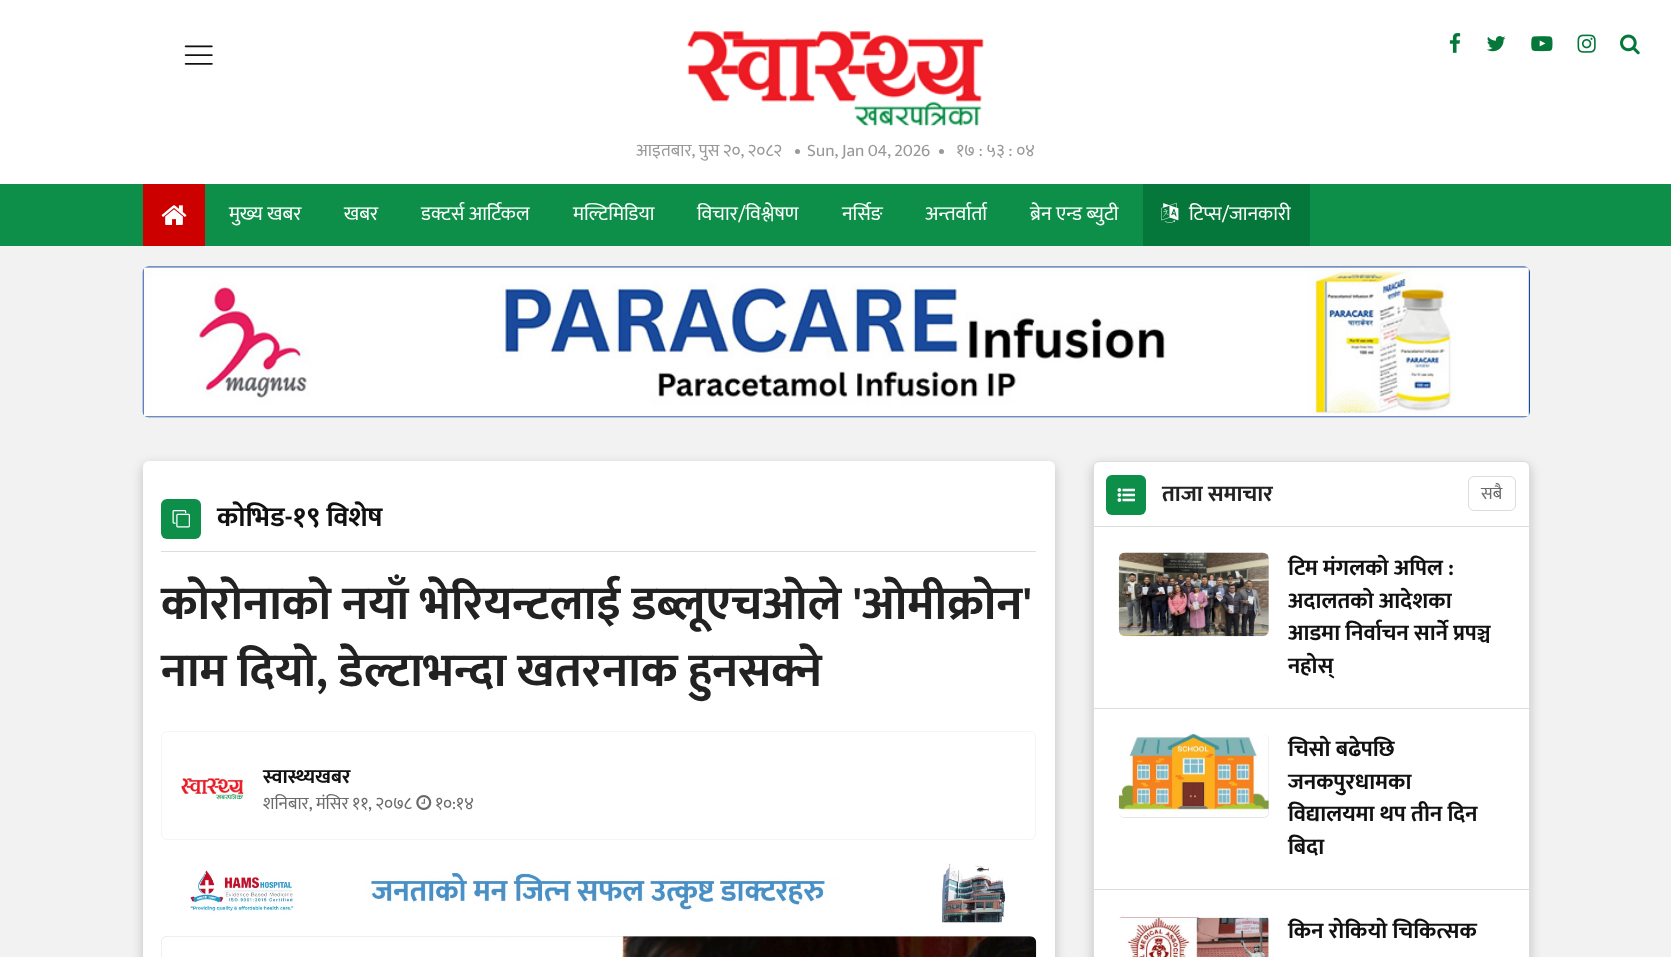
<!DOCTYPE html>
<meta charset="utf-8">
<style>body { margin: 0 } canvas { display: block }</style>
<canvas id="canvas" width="1671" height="957"></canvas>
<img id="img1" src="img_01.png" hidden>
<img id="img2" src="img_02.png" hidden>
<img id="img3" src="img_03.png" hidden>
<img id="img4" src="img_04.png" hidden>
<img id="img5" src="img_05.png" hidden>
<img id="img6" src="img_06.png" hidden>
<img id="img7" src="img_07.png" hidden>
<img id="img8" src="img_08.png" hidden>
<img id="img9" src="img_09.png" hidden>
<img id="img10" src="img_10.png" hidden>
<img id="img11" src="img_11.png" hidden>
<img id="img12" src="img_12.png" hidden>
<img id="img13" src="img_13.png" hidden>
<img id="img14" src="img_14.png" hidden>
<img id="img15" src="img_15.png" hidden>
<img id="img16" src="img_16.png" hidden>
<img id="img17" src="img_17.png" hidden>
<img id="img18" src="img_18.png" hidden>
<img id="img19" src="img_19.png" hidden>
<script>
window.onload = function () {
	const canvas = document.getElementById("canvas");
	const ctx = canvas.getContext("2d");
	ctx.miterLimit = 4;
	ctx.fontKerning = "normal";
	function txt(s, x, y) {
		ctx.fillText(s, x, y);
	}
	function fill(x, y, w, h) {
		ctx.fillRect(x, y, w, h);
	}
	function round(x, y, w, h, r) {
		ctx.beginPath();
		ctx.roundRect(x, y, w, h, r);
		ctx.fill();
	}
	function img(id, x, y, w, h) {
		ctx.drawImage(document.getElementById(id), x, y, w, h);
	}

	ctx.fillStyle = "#F2F2F2";
	fill(0, 0, 1671, 957);
	ctx.fillStyle = "#FFFFFF";
	fill(0, 0, 1671, 184);
	img("img1", 184, 45, 29, 20);
	img("img2", 1449, 33, 12, 20);
	img("img3", 1487, 36, 19, 16);
	img("img4", 1531, 36, 22, 16);
	img("img5", 1577, 34, 19, 19);
	img("img6", 1620, 34, 20, 21);
	img("img7", 687, 31, 297, 96);
	ctx.fillStyle = "#999999";
	ctx.beginPath();
	ctx.arc(797.5, 151.5, 2.5, 0, Math.PI * 2);
	ctx.fill();
	ctx.beginPath();
	ctx.arc(941.5, 151.5, 2.5, 0, Math.PI * 2);
	ctx.fill();
	ctx.fillStyle = "#0D8F49";
	fill(0, 184, 1671, 62);
	ctx.fillStyle = "#CD0000";
	fill(143, 184, 62, 62);
	img("img8", 161, 205, 26, 20);
	ctx.fillStyle = "#05773A";
	fill(1143, 184, 167, 62);
	img("img9", 1161, 202, 18, 21);
	img("img10", 142, 266, 1388, 152);
	ctx.fillStyle = "rgba(0, 0, 0, 0.2)";
	ctx.filter = "blur(6px)";
	ctx.beginPath();
	ctx.roundRect(143, 465, 912, 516, 6);
	ctx.fill();
	ctx.filter = "none";
	ctx.fillStyle = "#FFFFFF";
	round(143, 461, 912, 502, 6);
	ctx.fillStyle = "#DDDDDD";
	fill(161, 551, 875, 1);
	ctx.fillStyle = "#0D8F49";
	round(161, 499, 40, 40, 6);
	img("img11", 172, 510, 18, 18);
	ctx.beginPath();
	ctx.roundRect(161.5, 731.5, 874, 108, 5.5);
	ctx.strokeStyle = "#F5F5F5";
	ctx.stroke();
	img("img12", 181, 778, 63, 22);
	img("img13", 416, 795, 16, 15);
	img("img14", 190, 863, 816, 60);
	ctx.fillStyle = "#DDDDDD";
	round(161, 936, 875, 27, 6);
	img("img15", 161, 936, 876, 21);
	ctx.fillStyle = "rgba(0, 0, 0, 0.2)";
	ctx.filter = "blur(6px)";
	ctx.beginPath();
	ctx.roundRect(1093, 465, 437, 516, 6);
	ctx.fill();
	ctx.filter = "none";
	ctx.fillStyle = "#FFFFFF";
	ctx.beginPath();
	ctx.roundRect(1093.5, 461.5, 436, 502, 5.5);
	ctx.fill();
	ctx.strokeStyle = "#DDDDDD";
	ctx.stroke();
	ctx.fillStyle = "#0D8F49";
	round(1106, 475, 40, 40, 6);
	img("img16", 1117, 488, 18, 14);
	ctx.beginPath();
	ctx.roundRect(1468.5, 476.5, 47, 34, 5.5);
	ctx.stroke();
	ctx.fillStyle = "#DDDDDD";
	fill(1094, 526, 435, 1);
	round(1119, 553, 150, 83, 6);
	img("img17", 1118, 552, 151, 85);
	fill(1094, 708, 435, 1);
	round(1119, 734, 150, 84, 6);
	img("img18", 1118, 733, 151, 85);
	fill(1094, 889, 435, 1);
	ctx.beginPath();
	ctx.moveTo(1125, 915);
	ctx.lineTo(1263, 915);
	ctx.bezierCurveTo(1266.5, 915, 1269, 917.5, 1269, 921);
	ctx.lineTo(1269, 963);
	ctx.lineTo(1119, 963);
	ctx.lineTo(1119, 921);
	ctx.bezierCurveTo(1119, 917.5, 1121.5, 915, 1125, 915);
	ctx.closePath();
	ctx.fill();
	img("img19", 1119, 915, 150, 42);
	ctx.wordSpacing = "-0.5px";
	ctx.font = "17.5px Mukta";
	ctx.fillStyle = "#999999";
	txt("आइतबार, पुस २०, २०८२", 636, 156);
	txt("Sun, Jan 04, 2026", 807, 156);
	ctx.wordSpacing = "0px";
	txt("१७ : ५३ : ०४", 956, 156);
	ctx.font = "20px Mukta";
	ctx.fillStyle = "#FFFFFF";
	txt("मुख्य खबर", 229, 220);
	txt("खबर", 344, 220);
	txt("डक्टर्स आर्टिकल", 421, 220);
	txt("मल्टिमिडिया", 573, 220);
	txt("विचार/विश्लेषण", 697, 220);
	txt("नर्सिङ", 842, 220);
	txt("अन्तर्वार्ता", 925, 220);
	txt("ब्रेन एन्ड ब्युटी", 1030, 220);
	txt("टिप्स/जानकारी", 1189, 220);
	ctx.font = "bold 27.5px Mukta";
	ctx.fillStyle = "#111111";
	txt("कोभिड-१९ विशेष", 217, 526);
	ctx.font = "bold 47.5px Mukta";
	ctx.fillStyle = "#222222";
	txt("कोरोनाको नयाँ भेरियन्टलाई डब्लूएचओले 'ओमीक्रोन'", 161, 619);
	txt("नाम दियो, डेल्टाभन्दा खतरनाक हुनसक्ने", 161, 686);
	ctx.font = "bold 20px Mukta";
	ctx.fillStyle = "#111111";
	txt("स्वास्थ्यखबर", 263, 783);
	ctx.wordSpacing = "-0.5px";
	ctx.font = "17.5px Mukta";
	ctx.fillStyle = "#6B6969";
	txt("शनिबार, मंसिर ११, २०७८", 263, 809);
	ctx.wordSpacing = "0px";
	txt("१०:१४", 435, 809);
	ctx.font = "bold 22.5px Mukta";
	ctx.fillStyle = "#222222";
	txt("ताजा समाचार", 1162, 501);
	ctx.font = "17.5px Mukta";
	ctx.fillStyle = "#6B6969";
	txt("सबै", 1481, 499);
	ctx.font = "bold 22.5px Mukta";
	ctx.fillStyle = "#111111";
	txt("टिम मंगलको अपिल :", 1288, 575);
	txt("अदालतको आदेशका", 1288, 608);
	txt("आडमा निर्वाचन सार्ने प्रपञ्च", 1288, 640);
	txt("नहोस्", 1288, 673);
	txt("चिसो बढेपछि", 1288, 756);
	txt("जनकपुरधामका", 1288, 789);
	txt("विद्यालयमा थप तीन दिन", 1288, 821);
	txt("बिदा", 1288, 854);
	txt("किन रोकियो चिकित्सक", 1288, 938);
};
</script>
